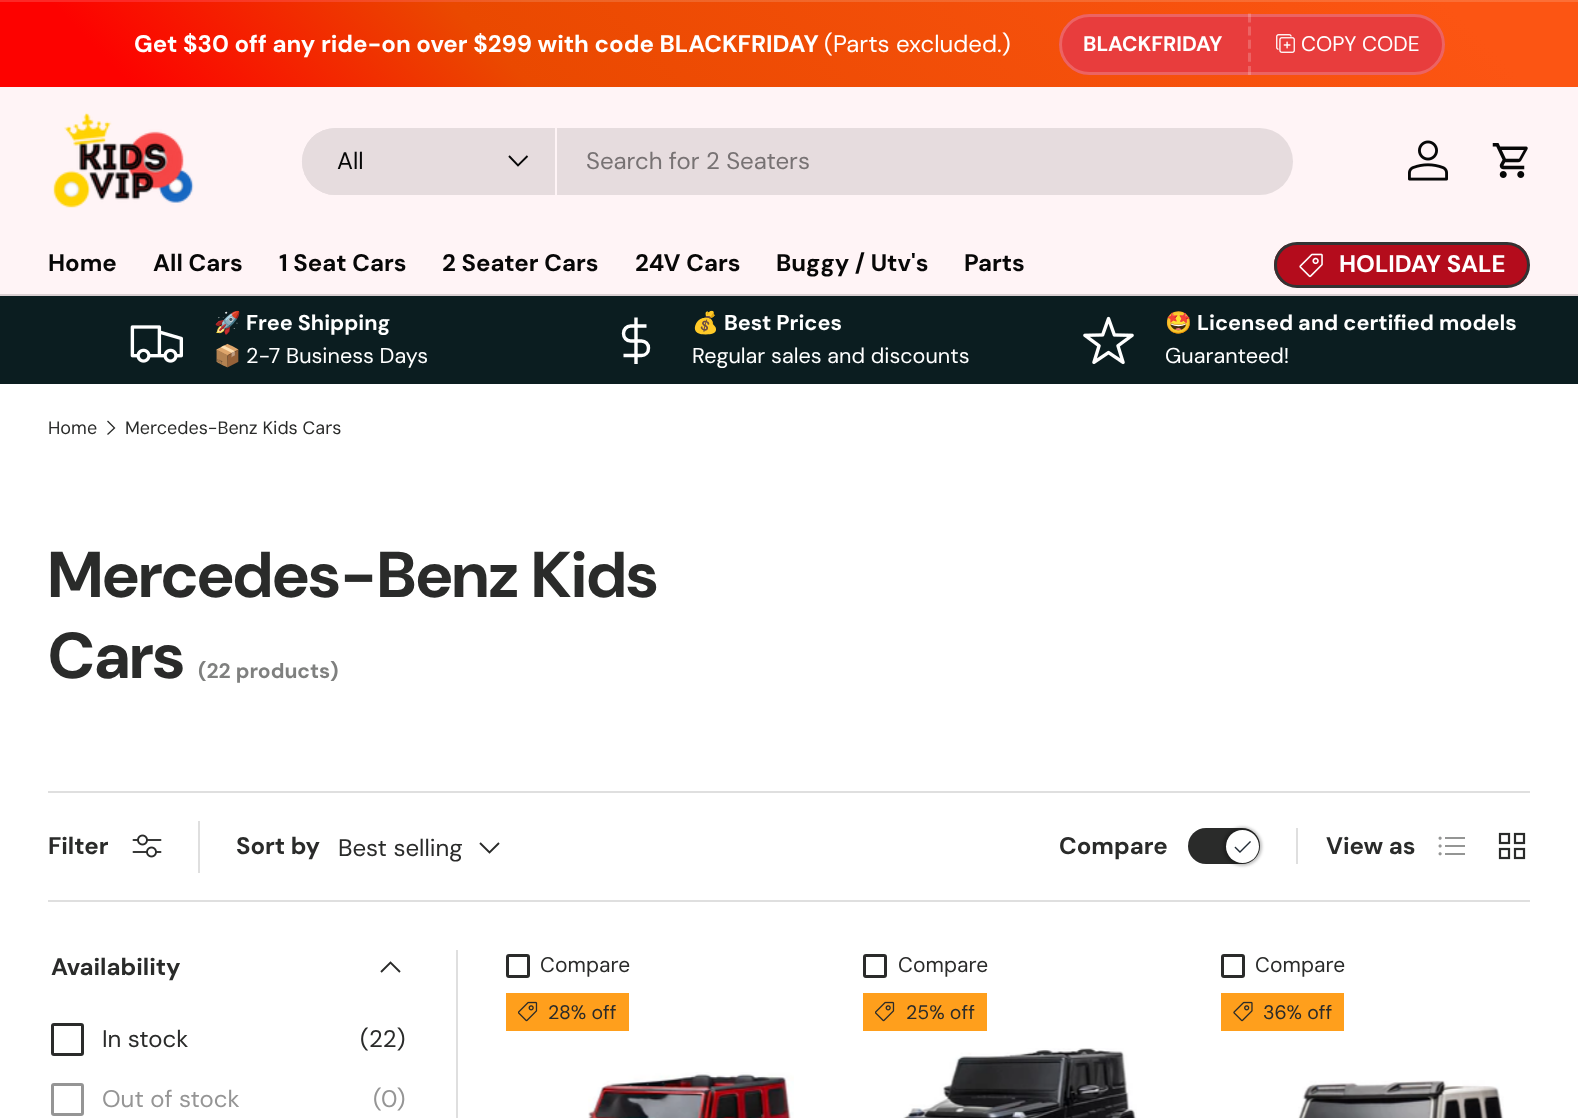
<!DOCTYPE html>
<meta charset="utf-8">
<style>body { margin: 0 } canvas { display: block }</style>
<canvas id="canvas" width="1578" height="1118"></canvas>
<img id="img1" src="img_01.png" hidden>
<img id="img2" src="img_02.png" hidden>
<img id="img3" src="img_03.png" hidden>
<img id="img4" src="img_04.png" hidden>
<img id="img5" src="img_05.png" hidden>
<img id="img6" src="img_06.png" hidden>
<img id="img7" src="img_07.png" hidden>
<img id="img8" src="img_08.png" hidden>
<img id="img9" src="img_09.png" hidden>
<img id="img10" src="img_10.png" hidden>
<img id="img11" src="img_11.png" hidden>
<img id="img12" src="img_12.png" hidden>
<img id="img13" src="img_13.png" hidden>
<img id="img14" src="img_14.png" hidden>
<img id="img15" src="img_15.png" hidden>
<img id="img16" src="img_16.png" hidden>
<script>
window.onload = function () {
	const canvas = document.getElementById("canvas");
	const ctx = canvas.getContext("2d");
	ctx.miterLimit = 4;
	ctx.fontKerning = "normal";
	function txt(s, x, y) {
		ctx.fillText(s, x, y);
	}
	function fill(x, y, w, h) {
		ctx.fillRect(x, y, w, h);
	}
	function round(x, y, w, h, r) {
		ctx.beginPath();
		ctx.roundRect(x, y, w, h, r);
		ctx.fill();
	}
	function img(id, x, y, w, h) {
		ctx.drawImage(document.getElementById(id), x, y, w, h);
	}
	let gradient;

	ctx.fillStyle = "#FFFFFF";
	fill(0, 0, 1578, 1118);
	gradient = ctx.createLinearGradient(359, 374, 1219, -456);
	gradient.addColorStop(0.08, "#FD2826");
	gradient.addColorStop(0.32, "#ED6426");
	gradient.addColorStop(0.92, "#FC6F36");
	ctx.fillStyle = gradient;
	fill(0, 0, 1578, 2);
	gradient = ctx.createLinearGradient(359, 459, 1219, -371);
	gradient.addColorStop(0.08, "#FD0200");
	gradient.addColorStop(0.32, "#EA4900");
	gradient.addColorStop(0.92, "#FC5513");
	ctx.fillStyle = gradient;
	fill(0, 2, 1578, 85);
	ctx.fillStyle = "#E83D3D";
	round(1059, 14, 386, 61, 30.5);
	ctx.beginPath();
	ctx.roundRect(1060.5, 15.5, 383, 58, 29);
	ctx.strokeStyle = "rgba(255, 255, 255, 0.2)";
	ctx.lineWidth = 3;
	ctx.stroke();
	ctx.beginPath();
	ctx.moveTo(1249.5, 13.5);
	ctx.lineTo(1249.5, 75);
	ctx.setLineDash([9, 4.12]);
	ctx.stroke();
	img("img1", 1276, 34, 19, 19);
	ctx.fillStyle = "#FFF4F6";
	fill(0, 87, 1578, 207);
	ctx.fillStyle = "#DAD0D2";
	fill(0, 294, 1578, 2);
	img("img2", 53, 112, 141, 96);
	ctx.fillStyle = "#E6DCDE";
	round(302, 128, 991, 67, 33.5);
	ctx.beginPath();
	ctx.roundRect(302, 128, 255, 67, [33.5, 0, 0, 33.5]);
	ctx.fill();
	ctx.fillStyle = "#FFF4F6";
	fill(555, 128, 2, 67);
	ctx.beginPath();
	ctx.moveTo(527.5, 156);
	ctx.lineTo(518, 165.5);
	ctx.lineTo(509, 156);
	ctx.strokeStyle = "#070707";
	ctx.lineWidth = 1.9;
	ctx.setLineDash([]);
	ctx.stroke();
	img("img3", 1408, 140, 40, 41);
	img("img4", 1492, 143, 36, 35);
	ctx.save();
	ctx.beginPath();
	ctx.roundRect(1274, 242, 256, 46, 23);
	ctx.clip();
	gradient = ctx.createLinearGradient(793, 175, 1510, 354);
	gradient.addColorStop(0.6, "#CB3342");
	gradient.addColorStop(0.6, "#B40C1C");
	gradient.addColorStop(1, "#B40C1C");
	ctx.fillStyle = gradient;
	fill(1274, 245, 253, 40);
	ctx.restore();
	ctx.beginPath();
	ctx.roundRect(1275.5, 243.5, 253, 43, 21.5);
	ctx.strokeStyle = "#333333";
	ctx.lineWidth = 3;
	ctx.stroke();
	img("img5", 1299, 253, 24, 25);
	ctx.fillStyle = "#0B1D20";
	fill(0, 296, 1578, 88);
	img("img6", 130, 325, 53, 38);
	ctx.beginPath();
	ctx.moveTo(636, 317.5);
	ctx.lineTo(636, 364);
	ctx.moveTo(646.5, 326);
	ctx.lineTo(630.5, 326);
	ctx.bezierCurveTo(626.5, 326, 623.5, 329.5, 623.5, 333.5);
	ctx.bezierCurveTo(623.5, 337.5, 626.5, 341, 630.5, 341);
	ctx.lineTo(641.5, 341);
	ctx.bezierCurveTo(645.5, 341, 648.5, 344, 648.5, 348);
	ctx.bezierCurveTo(648.5, 352.5, 645.5, 355.5, 641.5, 355.5);
	ctx.lineTo(623.5, 355.5);
	ctx.strokeStyle = "#FFFFFF";
	ctx.lineWidth = 3.4;
	ctx.stroke();
	img("img7", 1083, 316, 51, 49);
	ctx.beginPath();
	ctx.moveTo(107.5, 421);
	ctx.lineTo(114.5, 428);
	ctx.lineTo(107.5, 434.5);
	ctx.strokeStyle = "#2A2B2A";
	ctx.lineWidth = 1.3;
	ctx.stroke();
	ctx.fillStyle = "#DFDFDF";
	fill(48, 791, 1482, 2);
	fill(48, 900, 1482, 2);
	img("img8", 132, 834, 30, 24);
	fill(198, 821, 2, 52);
	ctx.beginPath();
	ctx.moveTo(499, 843);
	ctx.lineTo(489.5, 852.5);
	ctx.lineTo(480, 843);
	ctx.lineWidth = 1.9;
	ctx.stroke();
	ctx.fillStyle = "#2A2B2A";
	round(1188, 828, 72, 36, 18);
	ctx.fillStyle = "rgba(0, 0, 0, 0.25)";
	ctx.filter = "blur(1.5px)";
	ctx.beginPath();
	ctx.roundRect(1223, 827, 39, 39, 19.5);
	ctx.fill();
	ctx.filter = "none";
	ctx.fillStyle = "#FFFFFF";
	ctx.beginPath();
	ctx.arc(1242.5, 846.5, 16.5, 0, Math.PI * 2);
	ctx.fill();
	img("img9", 1234, 841, 17, 12);
	ctx.fillStyle = "#DFDFDF";
	fill(1296, 828, 2, 36);
	img("img10", 1438, 836, 27, 20);
	img("img11", 1498, 832, 28, 28);
	fill(456, 950, 2, 168);
	ctx.beginPath();
	ctx.moveTo(400, 972);
	ctx.lineTo(390.5, 962.5);
	ctx.lineTo(381, 972);
	ctx.stroke();
	ctx.beginPath();
	ctx.roundRect(52.5, 1024.5, 30, 30, 1.5);
	ctx.lineWidth = 3;
	ctx.stroke();
	ctx.beginPath();
	ctx.roundRect(52.5, 1084.5, 30, 30, 1.5);
	ctx.strokeStyle = "#959595";
	ctx.stroke();
	ctx.beginPath();
	ctx.roundRect(507.5, 955.5, 21, 21, 1.5);
	ctx.strokeStyle = "#2A2B2A";
	ctx.stroke();
	ctx.fillStyle = "#FF9F1C";
	fill(506, 993, 123, 38);
	img("img12", 518, 1001, 20, 21);
	img("img13", 588, 1072, 206, 46);
	ctx.beginPath();
	ctx.roundRect(864.5, 955.5, 21, 21, 1.5);
	ctx.stroke();
	fill(863, 993, 124, 38);
	img("img12", 875, 1001, 20, 21);
	img("img14", 903, 1048, 234, 70);
	ctx.beginPath();
	ctx.roundRect(1222.5, 955.5, 21, 21, 1.5);
	ctx.stroke();
	fill(1221, 993, 123, 38);
	img("img15", 1233, 1001, 20, 21);
	img("img16", 1298, 1080, 206, 38);
	ctx.font = "bold 24px DM Sans";
	ctx.fillStyle = "#FFFFFF";
	txt("Get $30 off any ride-on over $299 with code BLACKFRIDAY", 134, 52);
	ctx.font = "24px DM Sans";
	txt("(Parts excluded.)", 824, 52);
	ctx.font = "bold 21px 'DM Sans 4'";
	txt("BLACKFRIDAY", 1083, 51);
	ctx.font = "21px 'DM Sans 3'";
	txt("COPY CODE", 1301, 51);
	ctx.font = "24px DM Sans";
	ctx.fillStyle = "#070707";
	txt("All", 337, 169);
	ctx.fillStyle = "#777273";
	txt("Search for 2 Seaters", 586, 169);
	ctx.font = "bold 24px DM Sans";
	ctx.fillStyle = "#070707";
	txt("Home", 48, 271);
	txt("All Cars", 153, 271);
	txt("1 Seat Cars", 279, 271);
	txt("2 Seater Cars", 442, 271);
	txt("24V Cars", 635, 271);
	txt("Buggy / Utv's", 776, 271);
	txt("Parts", 964, 271);
	ctx.fillStyle = "#FFFFFF";
	txt("HOLIDAY SALE", 1339, 272);
	ctx.font = "bold 21.6px Noto Color Emoji";
	txt("🚀", 214, 330);
	ctx.font = "bold 21.6px 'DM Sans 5'";
	txt("Free Shipping", 246, 330);
	ctx.font = "21.6px Noto Color Emoji";
	txt("📦", 214, 363);
	ctx.font = "21.6px 'DM Sans 4'";
	txt("2-7 Business Days", 246, 363);
	ctx.font = "bold 21.6px Noto Color Emoji";
	txt("💰", 692, 330);
	ctx.font = "bold 21.6px 'DM Sans 5'";
	txt("Best Prices", 724, 330);
	ctx.font = "21.6px 'DM Sans 4'";
	txt("Regular sales and discounts", 692, 363);
	ctx.font = "bold 21.6px Noto Color Emoji";
	txt("🤩", 1165, 330);
	ctx.font = "bold 21.6px 'DM Sans 5'";
	txt("Licensed and certified models", 1197, 330);
	ctx.font = "21.6px 'DM Sans 4'";
	txt("Guaranteed!", 1165, 363);
	ctx.font = "18px 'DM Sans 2'";
	ctx.fillStyle = "#2A2B2A";
	txt("Home", 48, 434);
	txt("Mercedes-Benz Kids Cars", 125, 434);
	ctx.font = "bold 64.75px 'DM Sans 2'";
	txt("Mercedes-Benz Kids", 48, 597);
	txt("Cars", 48, 678);
	ctx.font = "bold 21px 'DM Sans 3'";
	ctx.fillStyle = "#7F807F";
	txt("(22 products)", 198, 678);
	ctx.font = "bold 24px DM Sans";
	ctx.fillStyle = "#2A2B2A";
	txt("Filter", 48, 854);
	txt("Sort by", 236, 854);
	ctx.font = "24px DM Sans";
	txt("Best selling", 338, 856);
	ctx.font = "bold 24px DM Sans";
	txt("Compare", 1059, 854);
	txt("View as", 1326, 854);
	txt("Availability", 51, 975);
	ctx.font = "24px DM Sans";
	txt("In stock", 102, 1047);
	txt("(22)", 360, 1047);
	ctx.fillStyle = "#959595";
	txt("Out of stock", 102, 1107);
	txt("(0)", 373, 1107);
	ctx.font = "21px 'DM Sans 2'";
	ctx.fillStyle = "#2A2B2A";
	txt("Compare", 540, 972);
	ctx.font = "19.5px 'DM Sans 5'";
	txt("28% off", 548, 1019);
	ctx.font = "21px 'DM Sans 2'";
	txt("Compare", 898, 972);
	ctx.font = "19.5px 'DM Sans 5'";
	txt("25% off", 906, 1019);
	ctx.font = "21px 'DM Sans 2'";
	txt("Compare", 1255, 972);
	ctx.font = "19.5px 'DM Sans 5'";
	txt("36% off", 1263, 1019);
};
</script>
